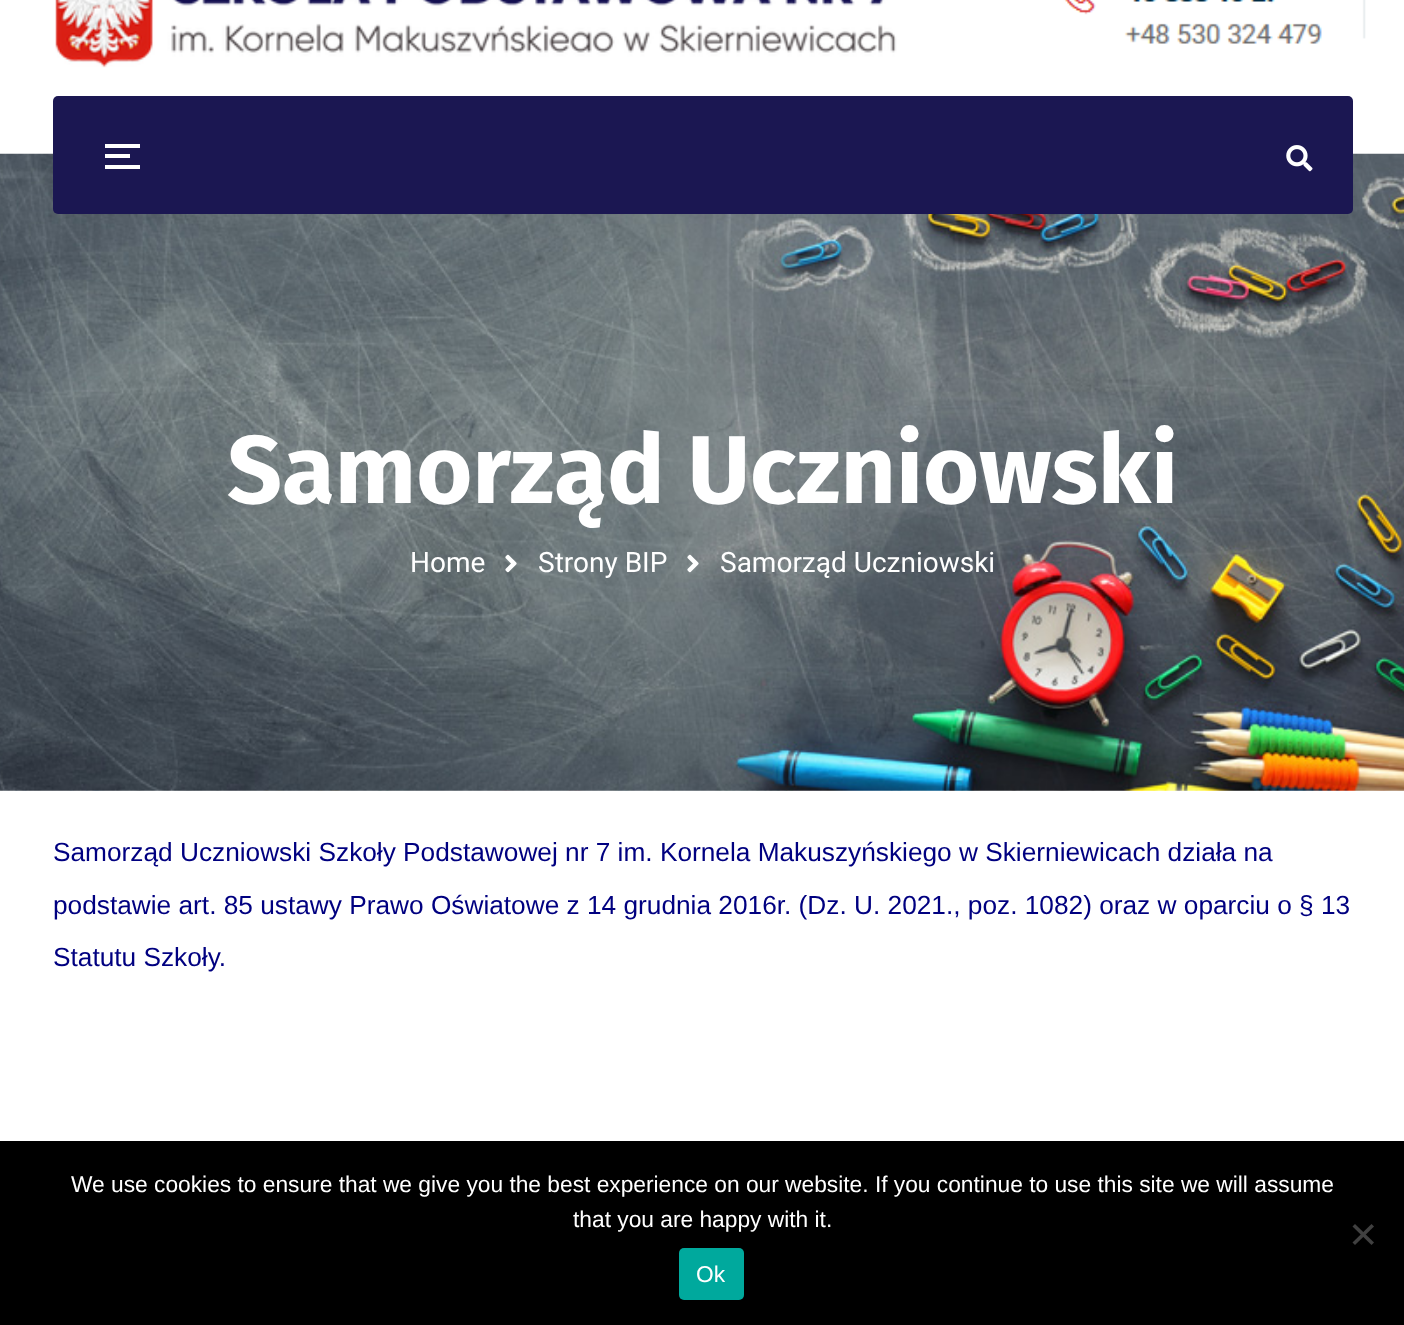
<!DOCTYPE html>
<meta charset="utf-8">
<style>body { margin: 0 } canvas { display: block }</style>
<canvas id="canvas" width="1404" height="1325"></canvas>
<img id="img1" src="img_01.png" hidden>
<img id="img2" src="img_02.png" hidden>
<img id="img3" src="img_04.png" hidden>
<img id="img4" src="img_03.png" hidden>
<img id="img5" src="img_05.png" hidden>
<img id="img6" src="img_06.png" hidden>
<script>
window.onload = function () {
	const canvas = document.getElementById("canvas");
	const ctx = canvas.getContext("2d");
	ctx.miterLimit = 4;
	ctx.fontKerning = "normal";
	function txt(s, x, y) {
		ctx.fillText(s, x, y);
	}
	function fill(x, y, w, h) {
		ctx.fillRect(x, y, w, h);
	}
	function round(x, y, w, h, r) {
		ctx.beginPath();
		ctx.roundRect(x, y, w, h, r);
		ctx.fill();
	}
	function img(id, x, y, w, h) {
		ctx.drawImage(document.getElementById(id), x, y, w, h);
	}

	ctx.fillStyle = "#FFFFFF";
	fill(0, 0, 1404, 1325);
	img("img1", 0, 790, 1404, 1);
	img("img2", 55, 0, 1311, 68);
	img("img3", 0, 153, 1404, 638);
	ctx.fillStyle = "#1B1752";
	round(53, 96, 1300, 118, 5);
	ctx.fillStyle = "#FFFFFF";
	fill(105, 144, 35, 4);
	fill(105, 154, 25, 4);
	fill(105, 165, 35, 4);
	img("img4", 1286, 145, 27, 27);
	img("img5", 505, 554, 12, 19);
	img("img6", 687, 554, 12, 19);
	ctx.fillStyle = "#000000";
	fill(0, 1141, 1404, 184);
	ctx.fillStyle = "#404040";
	ctx.beginPath();
	ctx.moveTo(1371.5, 1224);
	ctx.lineTo(1374, 1226.5);
	ctx.lineTo(1355, 1245);
	ctx.lineTo(1352.5, 1242.5);
	ctx.closePath();
	ctx.fill();
	ctx.beginPath();
	ctx.moveTo(1352.5, 1226.5);
	ctx.lineTo(1355, 1224);
	ctx.lineTo(1374, 1242.5);
	ctx.lineTo(1371.5, 1245);
	ctx.closePath();
	ctx.fill();
	ctx.fillStyle = "#00A99D";
	round(679, 1248, 65, 52, 5);
	ctx.font = "bold 96.25px Fira Sans";
	ctx.fillStyle = "#FFFFFF";
	txt("Samorząd Uczniowski", 227, 503);
	ctx.font = "28px Roboto";
	txt("Home", 410, 572);
	txt("Strony BIP", 538, 572);
	txt("Samorząd Uczniowski", 720, 572);
	ctx.font = "26.25px Liberation Sans";
	ctx.fillStyle = "#000080";
	txt("Samorząd Uczniowski Szkoły Podstawowej nr 7 im. Kornela Makuszyńskiego w Skierniewicach działa na", 53, 861);
	txt("podstawie art. 85 ustawy Prawo Oświatowe z 14 grudnia 2016r. (Dz. U. 2021., poz. 1082) oraz w oparciu o § 13", 53, 914);
	txt("Statutu Szkoły.", 53, 966);
	ctx.font = "22.75px Liberation Sans";
	ctx.fillStyle = "#FFFFFF";
	txt("We use cookies to ensure that we give you the best experience on our website. If you continue to use this site we will assume", 71, 1192);
	txt("that you are happy with it.", 573, 1227);
	txt("Ok", 696, 1282);
};
</script>
